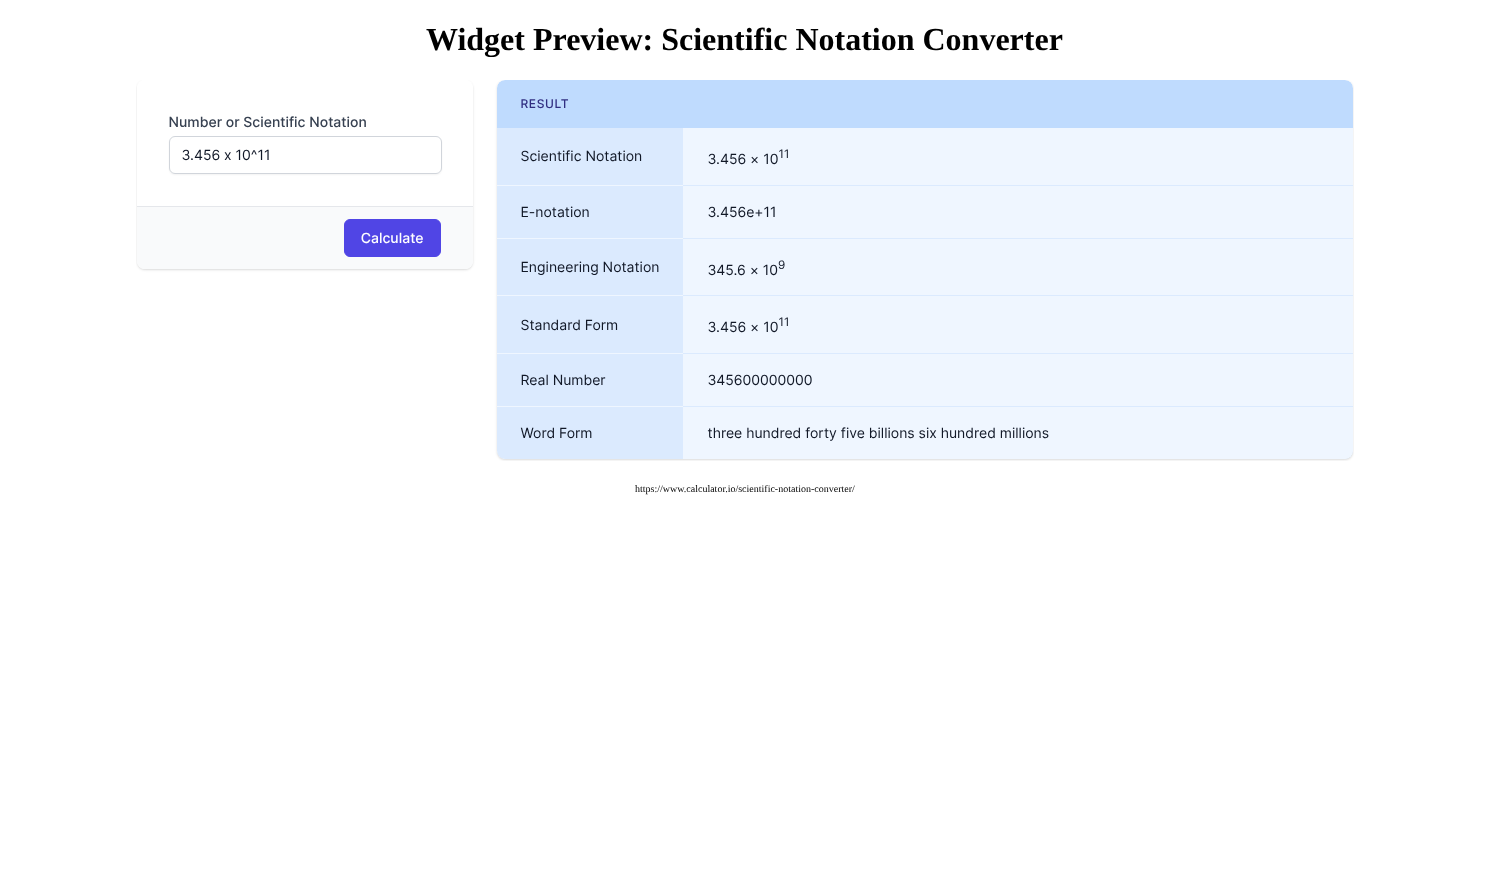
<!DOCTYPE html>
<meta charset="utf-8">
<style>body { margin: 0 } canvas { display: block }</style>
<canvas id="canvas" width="1489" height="881"></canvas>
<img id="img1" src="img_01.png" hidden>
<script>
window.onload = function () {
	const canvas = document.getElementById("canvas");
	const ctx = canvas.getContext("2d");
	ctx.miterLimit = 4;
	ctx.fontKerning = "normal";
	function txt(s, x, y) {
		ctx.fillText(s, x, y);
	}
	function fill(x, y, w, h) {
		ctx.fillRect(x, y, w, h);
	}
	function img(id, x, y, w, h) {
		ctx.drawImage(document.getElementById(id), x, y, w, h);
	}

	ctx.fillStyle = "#FFFFFF";
	fill(0, 0, 1489, 881);
	img("img1", 136, 80, 1218, 381);
	ctx.font = "bold 32px Liberation Serif";
	ctx.fillStyle = "#000000";
	txt("Widget Preview: Scientific Notation Converter", 426, 50);
	ctx.font = "10px Liberation Serif";
	txt("https://www.calculator.io/scientific-notation-converter/", 635, 492);
};
</script>
